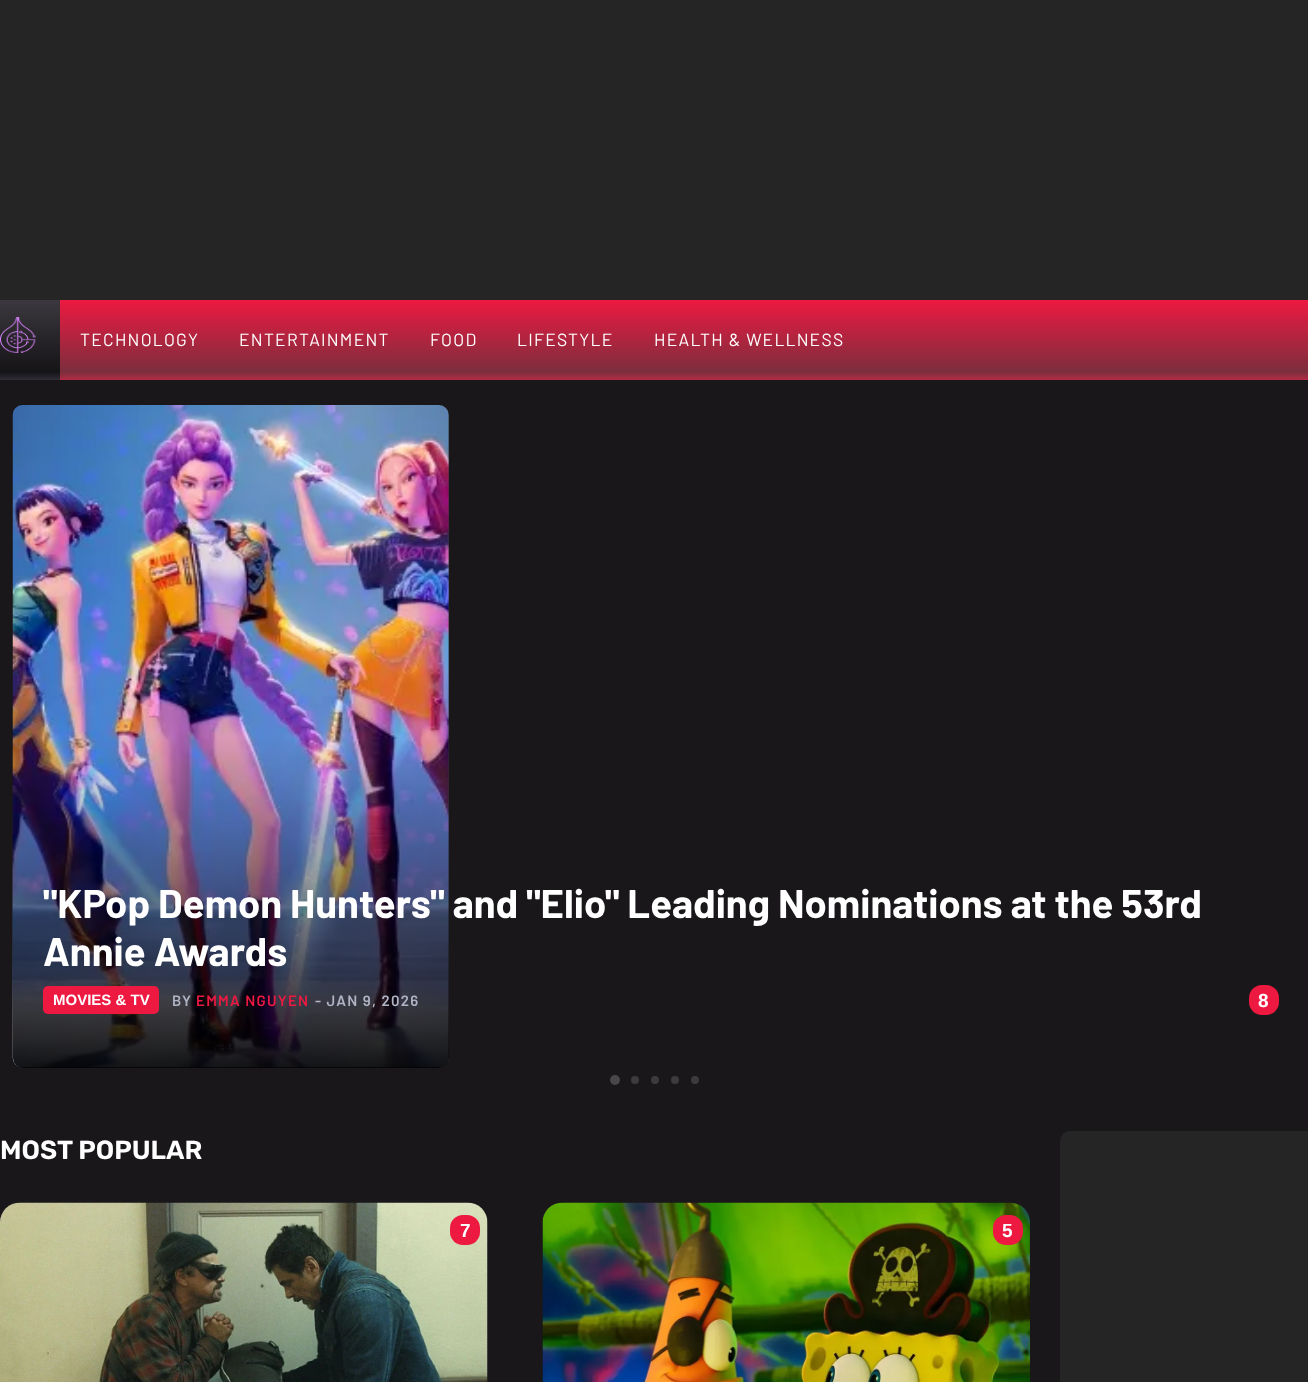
<!DOCTYPE html>
<meta charset="utf-8">
<style>body { margin: 0 } canvas { display: block }</style>
<canvas id="canvas" width="1308" height="1382"></canvas>
<img id="img1" src="img_01.png" hidden>
<img id="img2" src="img_02.png" hidden>
<img id="img3" src="img_03.png" hidden>
<img id="img4" src="img_04.png" hidden>
<script>
window.onload = function () {
	const canvas = document.getElementById("canvas");
	const ctx = canvas.getContext("2d");
	ctx.miterLimit = 4;
	ctx.fontKerning = "normal";
	function txt(s, x, y) {
		ctx.fillText(s, x, y);
	}
	function fill(x, y, w, h) {
		ctx.fillRect(x, y, w, h);
	}
	function round(x, y, w, h, r) {
		ctx.beginPath();
		ctx.roundRect(x, y, w, h, r);
		ctx.fill();
	}
	function img(id, x, y, w, h) {
		ctx.drawImage(document.getElementById(id), x, y, w, h);
	}
	let gradient;

	ctx.fillStyle = "#19171A";
	fill(0, 0, 1308, 1382);
	ctx.fillStyle = "#252525";
	fill(0, 0, 1308, 300);
	gradient = ctx.createLinearGradient(30, 300, 30, 380);
	gradient.addColorStop(0, "#3B383F");
	gradient.addColorStop(0.9, "#151416");
	gradient.addColorStop(1, "#302D38");
	ctx.fillStyle = gradient;
	fill(0, 300, 60, 80);
	img("img1", 0, 317, 36, 36);
	gradient = ctx.createLinearGradient(784, 300, 784, 380);
	gradient.addColorStop(0, "#ED1941");
	gradient.addColorStop(0.9, "#7C2E3D");
	gradient.addColorStop(1, "#B42B45");
	ctx.fillStyle = gradient;
	fill(60, 300, 1248, 80);
	ctx.fillStyle = "#323437";
	round(13, 405, 436, 663, 10);
	img("img2", 12, 405, 437, 663);
	gradient = ctx.createLinearGradient(231, 1068, 231, 405);
	gradient.addColorStop(0, "rgba(0, 0, 0, 0.9)");
	gradient.addColorStop(0.5, "rgba(0, 0, 0, 0)");
	ctx.fillStyle = gradient;
	round(13, 405, 436, 663, 10);
	ctx.fillStyle = "#ED1941";
	round(43, 986, 116, 28, 5);
	round(1249, 985, 30, 30, 13);
	ctx.fillStyle = "#494849";
	ctx.beginPath();
	ctx.arc(615, 1080, 5, 0, Math.PI * 2);
	ctx.fill();
	ctx.fillStyle = "#3B3A3C";
	ctx.beginPath();
	ctx.arc(635, 1080, 4, 0, Math.PI * 2);
	ctx.fill();
	ctx.beginPath();
	ctx.arc(655, 1080, 4, 0, Math.PI * 2);
	ctx.fill();
	ctx.beginPath();
	ctx.arc(675, 1080, 4, 0, Math.PI * 2);
	ctx.fill();
	ctx.beginPath();
	ctx.arc(695, 1080, 4, 0, Math.PI * 2);
	ctx.fill();
	img("img3", 0, 1202, 488, 180);
	ctx.fillStyle = "#ED1941";
	round(450, 1215, 30, 30, 13);
	img("img4", 542, 1202, 488, 180);
	round(993, 1215, 30, 30, 13);
	ctx.fillStyle = "#252525";
	round(1060, 1131, 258, 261, 10);
	ctx.letterSpacing = "1.25px";
	ctx.font = "17.5px Barlow";
	ctx.fillStyle = "#FFFFFF";
	txt("TECHNOLOGY", 80, 346);
	txt("ENTERTAINMENT", 239, 346);
	txt("FOOD", 430, 346);
	txt("LIFESTYLE", 517, 346);
	txt("HEALTH & WELLNESS", 654, 346);
	ctx.letterSpacing = "0px";
	ctx.font = "bold 40px Barlow";
	txt("\"KPop Demon Hunters\" and \"Elio\" Leading Nominations at the 53rd", 43, 918);
	txt("Annie Awards", 43, 966);
	ctx.font = "bold 15px Liberation Sans";
	txt("MOVIES & TV", 53, 1005);
	ctx.letterSpacing = "1.25px";
	ctx.font = "600 15px Barlow";
	ctx.fillStyle = "#B0B4C5";
	txt("BY", 172, 1006);
	ctx.fillStyle = "#ED1941";
	txt("EMMA NGUYEN", 196, 1006);
	ctx.fillStyle = "#B0B4C5";
	txt("- JAN 9, 2026", 315, 1006);
	ctx.letterSpacing = "0px";
	ctx.font = "bold 19px Liberation Sans";
	ctx.fillStyle = "#FFFFFF";
	txt("8", 1258, 1007);
	ctx.font = "600 26.25px Rubik";
	txt("MOST POPULAR", 0, 1159);
	ctx.font = "bold 19px Liberation Sans";
	txt("7", 460, 1237);
	txt("5", 1002, 1237);
};
</script>
